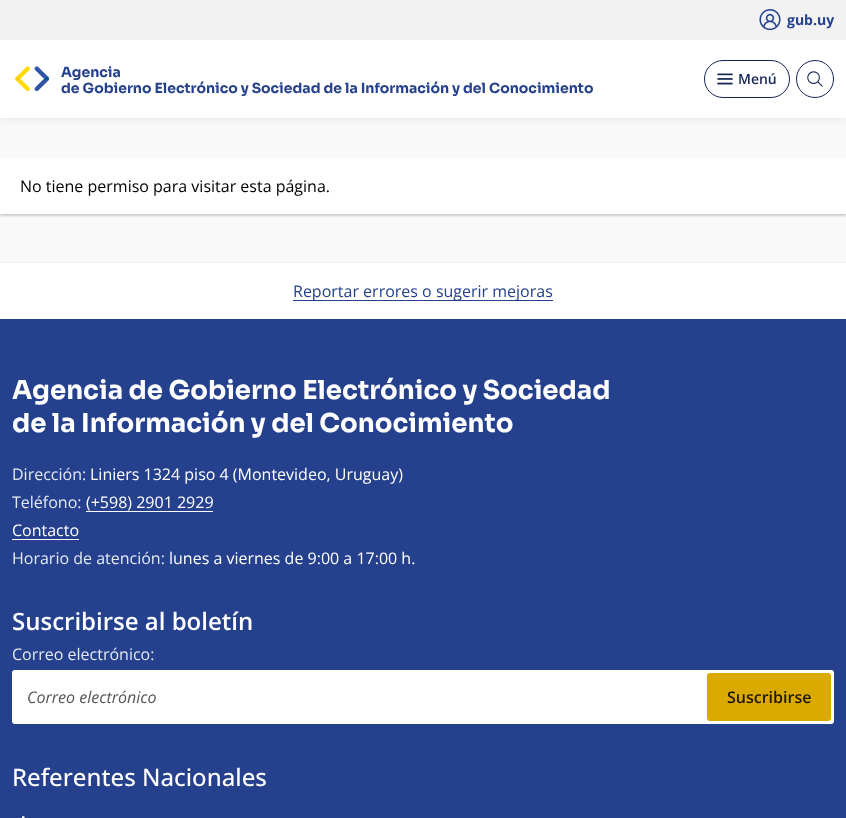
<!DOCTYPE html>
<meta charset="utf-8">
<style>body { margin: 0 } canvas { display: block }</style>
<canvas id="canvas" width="846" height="818"></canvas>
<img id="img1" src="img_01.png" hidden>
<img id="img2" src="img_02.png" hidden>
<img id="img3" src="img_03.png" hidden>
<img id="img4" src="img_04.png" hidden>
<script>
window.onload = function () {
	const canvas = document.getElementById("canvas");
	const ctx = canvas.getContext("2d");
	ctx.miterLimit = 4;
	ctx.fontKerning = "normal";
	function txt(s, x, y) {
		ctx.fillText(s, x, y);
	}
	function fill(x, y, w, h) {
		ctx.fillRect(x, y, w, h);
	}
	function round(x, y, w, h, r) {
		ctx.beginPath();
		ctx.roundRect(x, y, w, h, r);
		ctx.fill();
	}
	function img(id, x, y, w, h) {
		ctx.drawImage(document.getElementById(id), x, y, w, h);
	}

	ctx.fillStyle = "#F9F9F9";
	fill(0, 0, 846, 818);
	ctx.fillStyle = "rgba(0, 0, 0, 0.08)";
	ctx.filter = "blur(3px)";
	ctx.beginPath();
	ctx.rect(0, 0, 846, 119);
	ctx.fill();
	ctx.filter = "none";
	ctx.fillStyle = "#FFFFFF";
	fill(0, 40, 846, 78);
	ctx.fillStyle = "#EEEEEE";
	fill(0, 118, 846, 1);
	ctx.fillStyle = "#F2F2F2";
	fill(0, 0, 846, 40);
	img("img1", 759, 9, 22, 22);
	img("img2", 15, 66, 34, 25);
	ctx.beginPath();
	ctx.roundRect(704.5, 60.5, 85, 37, 18.5);
	ctx.strokeStyle = "#162755";
	ctx.stroke();
	img("img3", 717, 73, 16, 12);
	ctx.beginPath();
	ctx.arc(815, 79, 18.5, 0, Math.PI * 2);
	ctx.stroke();
	img("img4", 807, 71, 16, 16);
	ctx.fillStyle = "rgba(0, 0, 0, 0.18)";
	ctx.filter = "blur(1px)";
	ctx.beginPath();
	ctx.rect(0, 160, 846, 56);
	ctx.fill();
	ctx.filter = "none";
	ctx.fillStyle = "#FFFFFF";
	fill(0, 158, 846, 56);
	fill(0, 263, 846, 56);
	ctx.fillStyle = "#EEEEEE";
	fill(0, 262, 846, 1);
	ctx.fillStyle = "#25418E";
	fill(293, 300, 260, 1);
	fill(0, 319, 846, 499);
	ctx.fillStyle = "#FFFFFF";
	fill(86, 511, 127, 1);
	fill(12, 539, 67, 1);
	round(12, 670, 822, 54, 3);
	ctx.fillStyle = "#DAAA00";
	round(707, 673, 124, 48, 3);
	ctx.font = "bold 14px Open Sans";
	ctx.fillStyle = "#25418E";
	txt("gub.uy", 787, 25);
	ctx.font = "bold 14px Sora";
	txt("Agencia", 61, 77);
	txt("de Gobierno Electrónico y Sociedad de la Información y del Conocimiento", 61, 93);
	ctx.font = "600 14px Open Sans";
	ctx.fillStyle = "#162755";
	txt("Menú", 738, 84);
	ctx.font = "16px Open Sans";
	ctx.fillStyle = "#000000";
	txt("No tiene permiso para visitar esta página.", 20, 192);
	ctx.fillStyle = "#25418E";
	txt("Reportar errores o sugerir mejoras", 293, 297);
	ctx.font = "bold 26px Sora";
	ctx.fillStyle = "#FFFFFF";
	txt("Agencia de Gobierno Electrónico y Sociedad", 12, 399);
	txt("de la Información y del Conocimiento", 12, 432);
	ctx.font = "16px Open Sans";
	ctx.fillStyle = "#E2E9F1";
	txt("Dirección:", 12, 480);
	ctx.fillStyle = "#FFFFFF";
	txt("Liniers 1324 piso 4 (Montevideo, Uruguay)", 90, 480);
	ctx.fillStyle = "#E2E9F1";
	txt("Teléfono:", 12, 508);
	ctx.fillStyle = "#FFFFFF";
	txt("(+598) 2901 2929", 86, 508);
	txt("Contacto", 12, 536);
	ctx.fillStyle = "#E2E9F1";
	txt("Horario de atención:", 12, 564);
	ctx.fillStyle = "#FFFFFF";
	txt("lunes a viernes de 9:00 a 17:00 h.", 169, 564);
	ctx.font = "600 24px Open Sans";
	txt("Suscribirse al boletín", 12, 630);
	ctx.font = "16px Open Sans";
	ctx.fillStyle = "#E2E9F1";
	txt("Correo electrónico:", 12, 660);
	ctx.font = "italic 16px Open Sans";
	ctx.fillStyle = "#555555";
	txt("Correo electrónico", 27, 703);
	ctx.font = "600 16px Open Sans";
	ctx.fillStyle = "#1E1700";
	txt("Suscribirse", 727, 703);
	ctx.font = "500 24px Open Sans";
	ctx.fillStyle = "#FFFFFF";
	txt("Referentes Nacionales", 12, 786);
	ctx.font = "12px Open Sans";
	txt("•", 21, 822);
};
</script>
